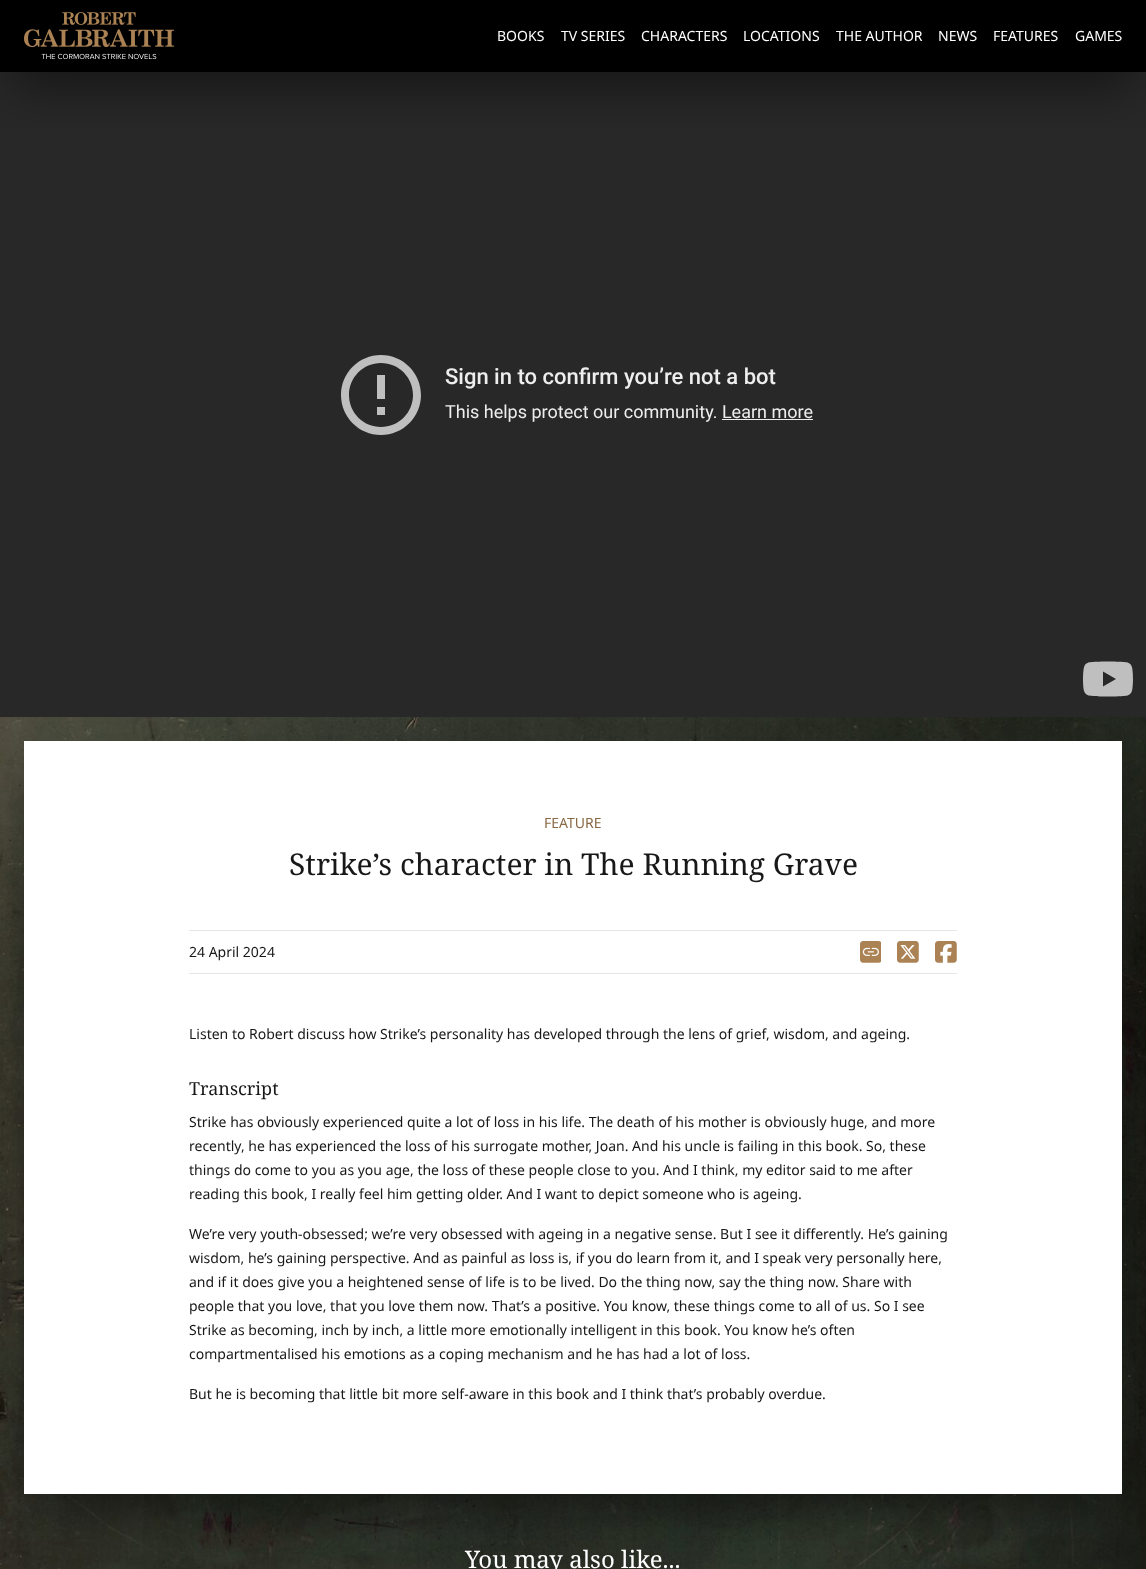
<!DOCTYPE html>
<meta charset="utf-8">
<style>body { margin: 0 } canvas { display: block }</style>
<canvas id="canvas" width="1146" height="1569"></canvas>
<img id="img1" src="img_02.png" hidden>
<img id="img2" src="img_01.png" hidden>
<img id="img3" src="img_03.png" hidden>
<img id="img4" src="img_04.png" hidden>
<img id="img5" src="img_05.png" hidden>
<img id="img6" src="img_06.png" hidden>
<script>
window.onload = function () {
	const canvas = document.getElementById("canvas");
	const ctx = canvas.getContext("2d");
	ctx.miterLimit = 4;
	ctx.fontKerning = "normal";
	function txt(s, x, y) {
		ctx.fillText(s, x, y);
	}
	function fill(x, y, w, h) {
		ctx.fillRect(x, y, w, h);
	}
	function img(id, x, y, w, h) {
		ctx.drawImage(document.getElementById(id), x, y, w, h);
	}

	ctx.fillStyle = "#000000";
	fill(0, 0, 1146, 1569);
	img("img1", 0, 72, 1146, 645);
	ctx.save();
	ctx.beginPath();
	ctx.rect(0, 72, 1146, 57);
	ctx.clip();
	ctx.fillStyle = "rgba(0, 0, 0, 0.5)";
	ctx.filter = "blur(25px)";
	ctx.beginPath();
	ctx.rect(12, 37, 1122, 48);
	ctx.fill();
	ctx.filter = "none";
	ctx.restore();
	img("img2", 24, 12, 150, 48);
	img("img3", 0, 717, 1146, 852);
	ctx.fillStyle = "rgba(0, 0, 0, 0.5)";
	ctx.filter = "blur(25px)";
	ctx.beginPath();
	ctx.rect(36, 778, 1074, 729);
	ctx.fill();
	ctx.filter = "none";
	ctx.fillStyle = "#FFFFFF";
	fill(24, 741, 1098, 753);
	ctx.fillStyle = "#E5E7EB";
	fill(189, 930, 768, 1);
	fill(189, 973, 768, 1);
	img("img4", 860, 941, 21, 22);
	img("img5", 897, 941, 22, 22);
	img("img6", 935, 941, 22, 22);
	ctx.font = "14px Noto Sans";
	ctx.fillStyle = "#FFFFFF";
	txt("BOOKS", 497, 41);
	txt("TV SERIES", 561, 41);
	txt("CHARACTERS", 641, 41);
	txt("LOCATIONS", 743, 41);
	txt("THE AUTHOR", 836, 41);
	txt("NEWS", 938, 41);
	txt("FEATURES", 993, 41);
	txt("GAMES", 1075, 41);
	ctx.fillStyle = "#896843";
	txt("FEATURE", 544, 828);
	ctx.font = "30px Noto Serif";
	ctx.fillStyle = "#181818";
	txt("Strike’s character in The Running Grave", 289, 875);
	ctx.font = "14px Noto Sans";
	txt("24 April 2024", 189, 957);
	txt("Listen to Robert discuss how Strike’s personality has developed through the lens of grief, wisdom, and ageing.", 189, 1039);
	ctx.font = "18px Noto Serif";
	txt("Transcript", 189, 1095);
	ctx.font = "14px Noto Sans";
	txt("Strike has obviously experienced quite a lot of loss in his life. The death of his mother is obviously huge, and more", 189, 1127);
	txt("recently, he has experienced the loss of his surrogate mother, Joan. And his uncle is failing in this book. So, these", 189, 1151);
	txt("things do come to you as you age, the loss of these people close to you. And I think, my editor said to me after", 189, 1175);
	txt("reading this book, I really feel him getting older. And I want to depict someone who is ageing.", 189, 1199);
	txt("We’re very youth-obsessed; we’re very obsessed with ageing in a negative sense. But I see it differently. He’s gaining", 189, 1239);
	txt("wisdom, he’s gaining perspective. And as painful as loss is, if you do learn from it, and I speak very personally here,", 189, 1263);
	txt("and if it does give you a heightened sense of life is to be lived. Do the thing now, say the thing now. Share with", 189, 1287);
	txt("people that you love, that you love them now. That’s a positive. You know, these things come to all of us. So I see", 189, 1311);
	txt("Strike as becoming, inch by inch, a little more emotionally intelligent in this book. You know he’s often", 189, 1335);
	txt("compartmentalised his emotions as a coping mechanism and he has had a lot of loss.", 189, 1359);
	txt("But he is becoming that little bit more self-aware in this book and I think that’s probably overdue.", 189, 1399);
	ctx.font = "24px Noto Serif";
	ctx.fillStyle = "#FFFFFF";
	txt("You may also like...", 465, 1568);
};
</script>
